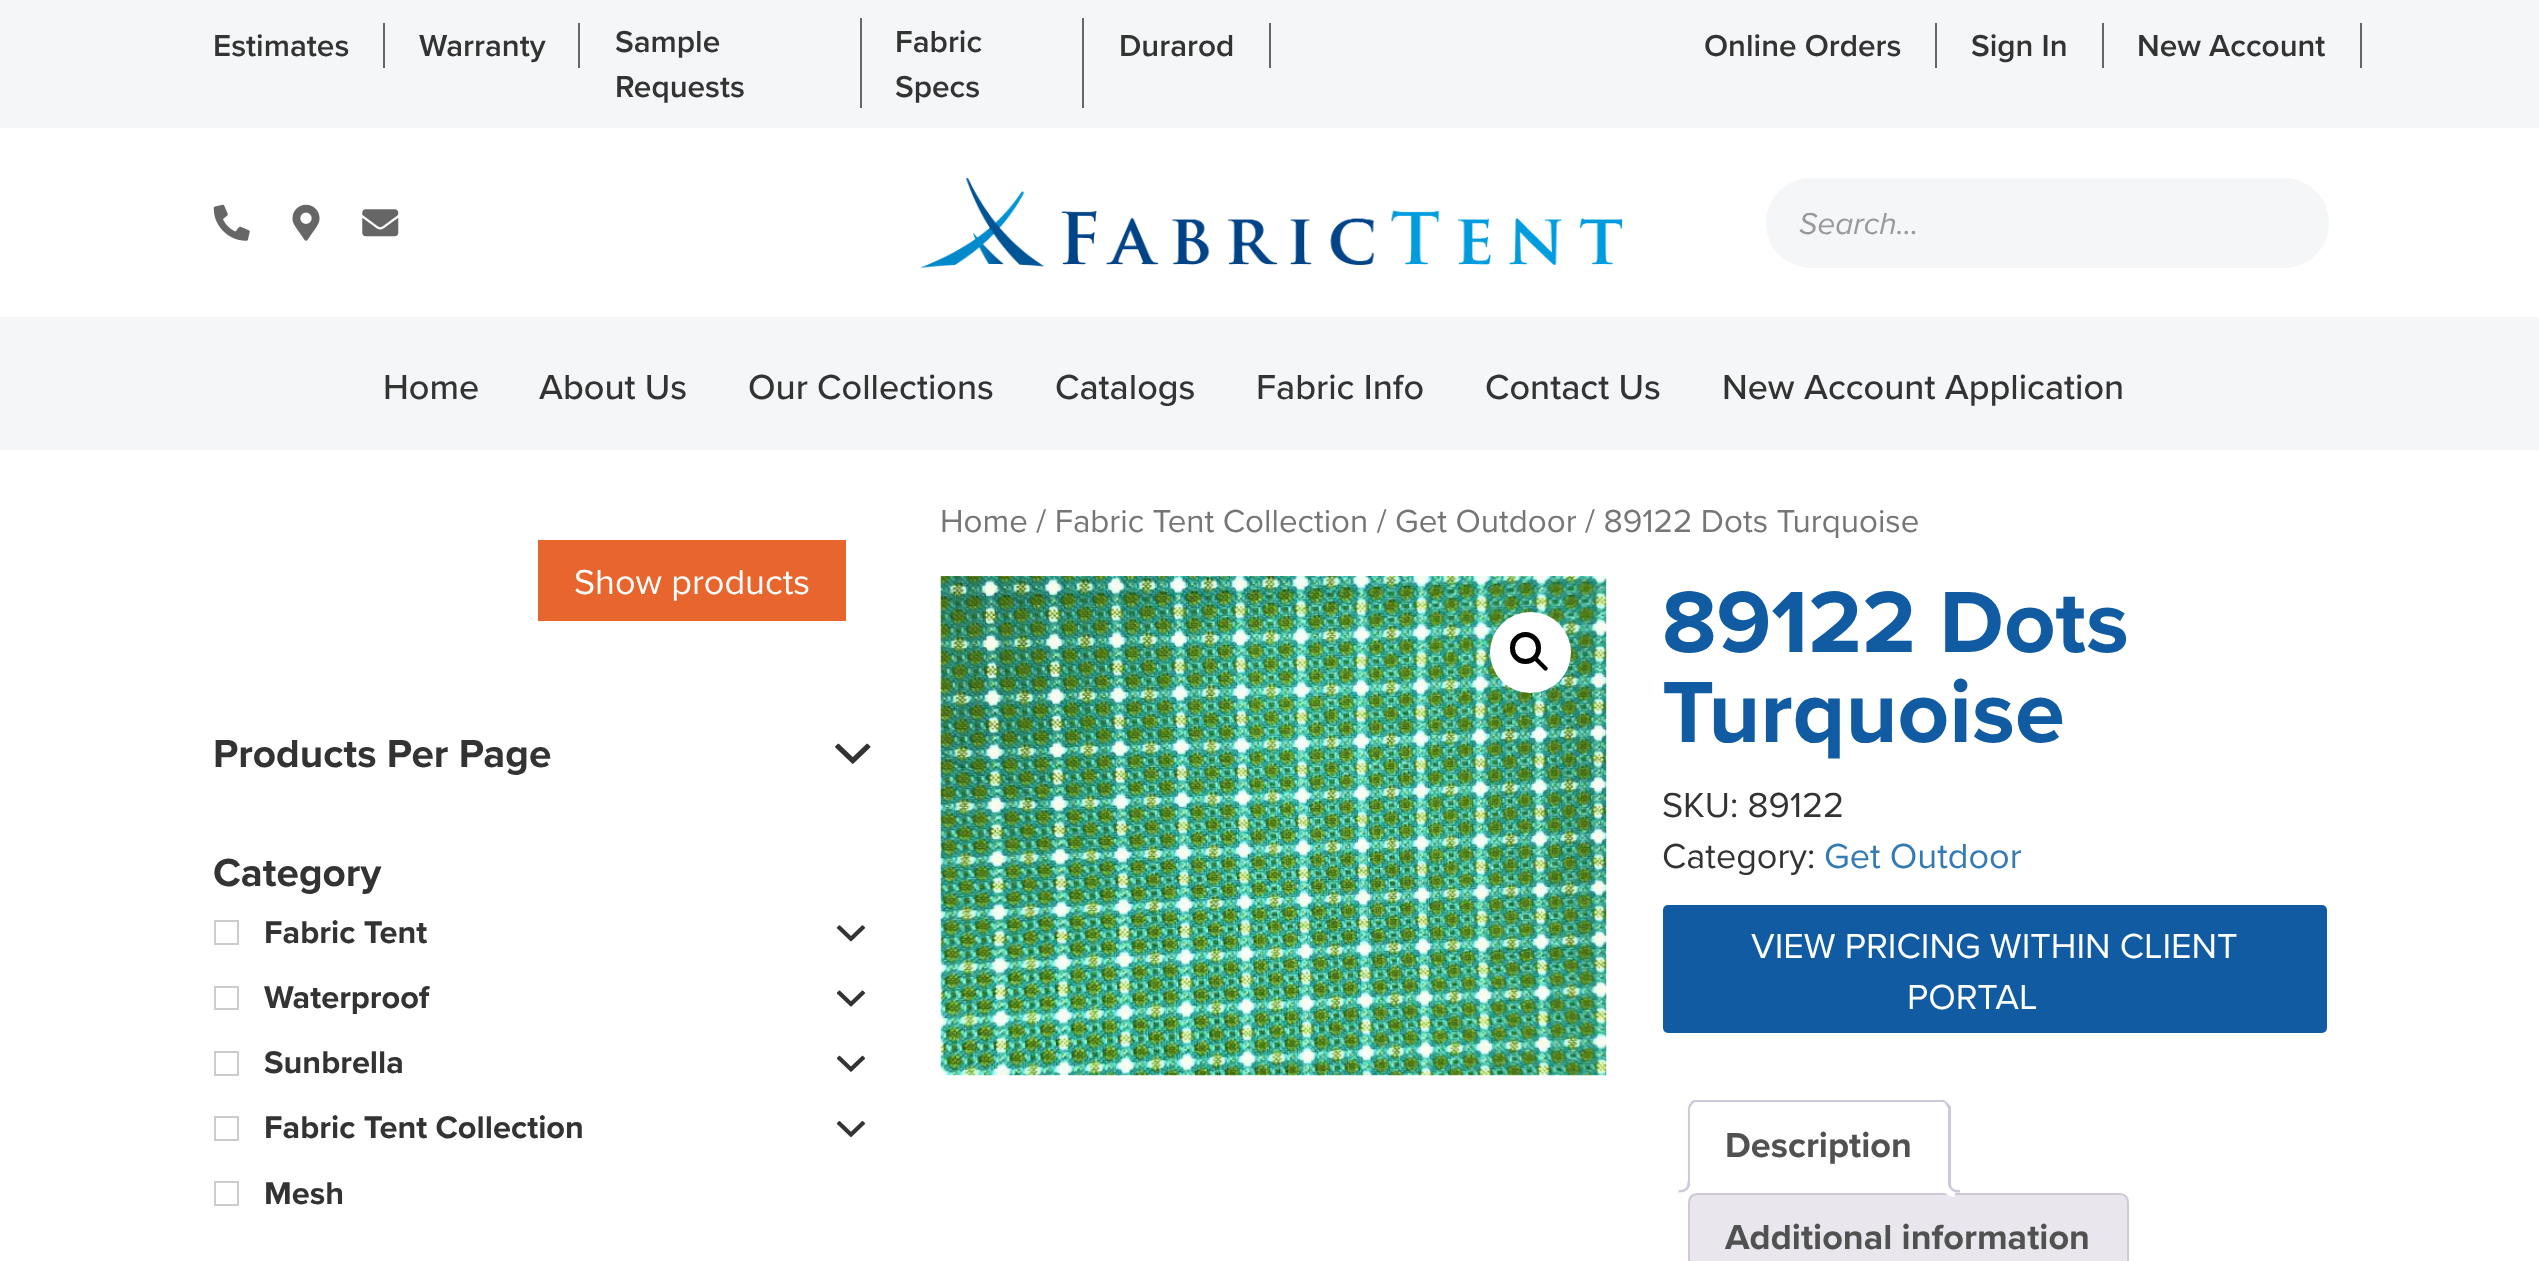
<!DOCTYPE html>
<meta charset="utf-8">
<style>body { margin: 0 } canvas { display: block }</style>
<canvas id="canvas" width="2539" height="1261"></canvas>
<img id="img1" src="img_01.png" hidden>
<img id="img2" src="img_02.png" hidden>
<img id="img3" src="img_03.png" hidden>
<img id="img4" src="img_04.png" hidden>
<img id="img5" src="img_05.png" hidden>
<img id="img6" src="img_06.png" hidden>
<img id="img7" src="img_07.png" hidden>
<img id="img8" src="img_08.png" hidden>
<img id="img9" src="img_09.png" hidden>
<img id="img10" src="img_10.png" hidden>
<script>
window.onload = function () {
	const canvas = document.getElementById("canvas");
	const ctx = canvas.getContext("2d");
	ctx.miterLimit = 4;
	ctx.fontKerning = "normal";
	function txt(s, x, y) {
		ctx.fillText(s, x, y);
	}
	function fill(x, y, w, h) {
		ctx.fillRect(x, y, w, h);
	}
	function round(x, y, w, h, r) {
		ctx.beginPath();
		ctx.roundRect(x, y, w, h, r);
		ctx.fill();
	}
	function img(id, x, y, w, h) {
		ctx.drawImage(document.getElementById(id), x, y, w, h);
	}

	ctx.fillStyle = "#FFFFFF";
	fill(0, 0, 2539, 1261);
	ctx.fillStyle = "#F5F6F8";
	fill(0, 0, 2539, 128);
	ctx.fillStyle = "#666666";
	fill(383, 23, 2, 45);
	fill(578, 23, 2, 45);
	fill(860, 18, 2, 90);
	fill(1082, 18, 2, 90);
	fill(1269, 23, 2, 45);
	fill(1935, 23, 2, 45);
	fill(2102, 23, 2, 45);
	fill(2360, 23, 2, 45);
	img("img1", 213, 204, 37, 37);
	img("img2", 292, 204, 28, 37);
	img("img3", 362, 209, 37, 28);
	img("img4", 920, 177, 703, 91);
	ctx.fillStyle = "#F5F6F8";
	round(1766, 178, 563, 90, 45);
	fill(0, 317, 2539, 133);
	ctx.fillStyle = "#E9652E";
	fill(538, 540, 308, 81);
	img("img5", 835, 743, 36, 21);
	ctx.strokeStyle = "#CCCCCC";
	ctx.lineWidth = 2;
	ctx.strokeRect(215, 921, 23, 23);
	img("img6", 836, 925, 30, 17);
	ctx.strokeRect(215, 987, 23, 22);
	img("img7", 836, 990, 30, 17);
	ctx.strokeRect(215, 1052, 23, 23);
	img("img8", 836, 1055, 30, 17);
	ctx.strokeRect(215, 1117, 23, 23);
	img("img9", 836, 1121, 30, 17);
	ctx.strokeRect(215, 1182, 23, 23);
	img("img10", 940, 576, 667, 500);
	ctx.fillStyle = "#FFFFFF";
	ctx.beginPath();
	ctx.arc(1530.5, 652.5, 40.5, 0, Math.PI * 2);
	ctx.fill();
	ctx.beginPath();
	ctx.roundRect(1512.5, 634.5, 26, 27, 13);
	ctx.strokeStyle = "#000000";
	ctx.lineWidth = 5;
	ctx.stroke();
	ctx.fillStyle = "#000000";
	ctx.beginPath();
	ctx.moveTo(1534.5, 657.5);
	ctx.bezierCurveTo(1535.5, 656.5, 1537, 656.5, 1537.5, 657.5);
	ctx.lineTo(1547, 667);
	ctx.bezierCurveTo(1548, 667.5, 1548, 669, 1547, 670);
	ctx.bezierCurveTo(1546.5, 671, 1545, 671, 1544, 670);
	ctx.lineTo(1534.5, 660.5);
	ctx.bezierCurveTo(1533.5, 659.5, 1533.5, 658, 1534.5, 657.5);
	ctx.closePath();
	ctx.fill();
	ctx.fillStyle = "#115BA3";
	round(1663, 905, 664, 128, 5);
	ctx.fillStyle = "#CFC8D8";
	ctx.beginPath();
	ctx.moveTo(1696, 1102);
	ctx.bezierCurveTo(1694, 1102, 1693, 1103, 1692, 1105);
	ctx.lineTo(1690, 1103);
	ctx.bezierCurveTo(1691, 1102, 1693, 1100, 1694, 1100);
	ctx.lineTo(1944, 1100);
	ctx.lineTo(1948, 1103);
	ctx.lineTo(1946, 1105);
	ctx.bezierCurveTo(1945, 1103, 1944, 1102, 1942, 1102);
	ctx.closePath();
	ctx.fill();
	ctx.beginPath();
	ctx.moveTo(1951, 1192);
	ctx.lineTo(1948, 1190);
	ctx.lineTo(1948, 1109);
	ctx.bezierCurveTo(1948, 1108, 1947, 1106, 1946, 1105);
	ctx.lineTo(1948, 1103);
	ctx.lineTo(1951, 1107);
	ctx.closePath();
	ctx.fill();
	ctx.fillStyle = "#FFFFFF";
	ctx.beginPath();
	ctx.moveTo(1950, 1192);
	ctx.lineTo(1688, 1192);
	ctx.lineTo(1690, 1190);
	ctx.lineTo(1948, 1190);
	ctx.closePath();
	ctx.fill();
	ctx.fillStyle = "#CFC8D8";
	ctx.beginPath();
	ctx.moveTo(1688, 1192);
	ctx.lineTo(1690, 1190);
	ctx.lineTo(1690, 1109);
	ctx.bezierCurveTo(1690, 1108, 1691, 1106, 1692, 1105);
	ctx.lineTo(1690, 1103);
	ctx.bezierCurveTo(1689, 1105, 1688, 1107, 1688, 1109);
	ctx.closePath();
	ctx.fill();
	ctx.fillStyle = "#E9E6ED";
	ctx.beginPath();
	ctx.moveTo(1697, 1194);
	ctx.lineTo(2120, 1194);
	ctx.bezierCurveTo(2124.5, 1194, 2128, 1197.5, 2128, 1202);
	ctx.lineTo(2128, 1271);
	ctx.lineTo(1689, 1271);
	ctx.lineTo(1689, 1202);
	ctx.bezierCurveTo(1689, 1197.5, 1692.5, 1194, 1697, 1194);
	ctx.closePath();
	ctx.fill();
	ctx.strokeStyle = "#CFC8D8";
	ctx.lineWidth = 2;
	ctx.stroke();
	ctx.fillStyle = "#FFFFFF";
	ctx.beginPath();
	ctx.moveTo(1683, 1192);
	ctx.lineTo(1683, 1197);
	ctx.bezierCurveTo(1690.5, 1197, 1694, 1193.5, 1694, 1186);
	ctx.lineTo(1689.5, 1186);
	ctx.bezierCurveTo(1688.5, 1189, 1686, 1191.5, 1683, 1192);
	ctx.closePath();
	ctx.fill();
	ctx.fillStyle = "#CFC8D8";
	ctx.beginPath();
	ctx.moveTo(1678.5, 1181);
	ctx.lineTo(1690, 1181);
	ctx.bezierCurveTo(1690, 1189.5, 1686.5, 1192.5, 1678.5, 1192.5);
	ctx.closePath();
	ctx.moveTo(1678.5, 1181);
	ctx.lineTo(1687.5, 1181);
	ctx.bezierCurveTo(1687.5, 1188, 1685.5, 1190, 1678.5, 1190);
	ctx.closePath();
	ctx.fill("evenodd");
	ctx.fillStyle = "#FFFFFF";
	ctx.beginPath();
	ctx.moveTo(1944, 1186);
	ctx.bezierCurveTo(1944, 1193.5, 1947.5, 1197, 1955, 1197);
	ctx.lineTo(1955, 1192);
	ctx.bezierCurveTo(1952, 1191.5, 1949.5, 1189, 1949, 1186);
	ctx.closePath();
	ctx.fill();
	ctx.fillStyle = "#CFC8D8";
	ctx.beginPath();
	ctx.moveTo(1948.5, 1181);
	ctx.lineTo(1960, 1181);
	ctx.lineTo(1960, 1192.5);
	ctx.lineTo(1957.5, 1192.5);
	ctx.bezierCurveTo(1952.5, 1192.5, 1948.5, 1188.5, 1948.5, 1183.5);
	ctx.closePath();
	ctx.moveTo(1951, 1181);
	ctx.lineTo(1960, 1181);
	ctx.lineTo(1960, 1190);
	ctx.bezierCurveTo(1955, 1190, 1951, 1189, 1951, 1183.5);
	ctx.closePath();
	ctx.fill("evenodd");
	ctx.font = "600 31.5px Proxima Nova";
	ctx.fillStyle = "#333333";
	txt("Estimates", 213, 56);
	txt("Warranty", 419, 56);
	txt("Sample", 615, 52);
	txt("Requests", 615, 97);
	txt("Fabric", 895, 52);
	txt("Specs", 895, 97);
	txt("Durarod", 1119, 56);
	txt("Online Orders", 1704, 56);
	txt("Sign In", 1971, 56);
	txt("New Account", 2137, 56);
	ctx.font = "italic 31.5px Proxima Nova";
	ctx.fillStyle = "#999999";
	txt("Search...", 1799, 234);
	ctx.font = "500 36px Proxima Nova";
	ctx.fillStyle = "#333333";
	txt("Home", 383, 399);
	txt("About Us", 539, 399);
	txt("Our Collections", 748, 399);
	txt("Catalogs", 1055, 399);
	txt("Fabric Info", 1256, 399);
	txt("Contact Us", 1485, 399);
	txt("New Account Application", 1722, 399);
	ctx.font = "36px Proxima Nova";
	ctx.fillStyle = "#FFFFFF";
	txt("Show products", 574, 594);
	ctx.font = "bold 40.5px Proxima Nova";
	ctx.fillStyle = "#333333";
	txt("Products Per Page", 213, 767);
	txt("Category", 213, 886);
	ctx.font = "bold 32.5px Proxima Nova";
	txt("Fabric Tent", 264, 943);
	txt("Waterproof", 264, 1008);
	txt("Sunbrella", 264, 1073);
	txt("Fabric Tent Collection", 264, 1138);
	txt("Mesh", 264, 1204);
	ctx.font = "33.1px Proxima Nova";
	ctx.fillStyle = "#767676";
	txt("Home / Fabric Tent Collection / Get Outdoor / 89122 Dots Turquoise", 940, 532);
	ctx.font = "bold 90px Proxima Nova";
	ctx.fillStyle = "#115BA3";
	txt("89122 Dots", 1662, 652);
	txt("Turquoise", 1662, 742);
	ctx.font = "36px Proxima Nova";
	ctx.fillStyle = "#333333";
	txt("SKU: 89122", 1662, 817);
	txt("Category:", 1662, 868);
	ctx.fillStyle = "#337AB7";
	txt("Get Outdoor", 1824, 868);
	ctx.fillStyle = "#FFFFFF";
	txt("VIEW PRICING WITHIN CLIENT", 1751, 958);
	txt("PORTAL", 1907, 1009);
	ctx.font = "bold 36px Proxima Nova";
	ctx.fillStyle = "#515151";
	txt("Description", 1725, 1157);
	txt("Additional information", 1725, 1249);
};
</script>
